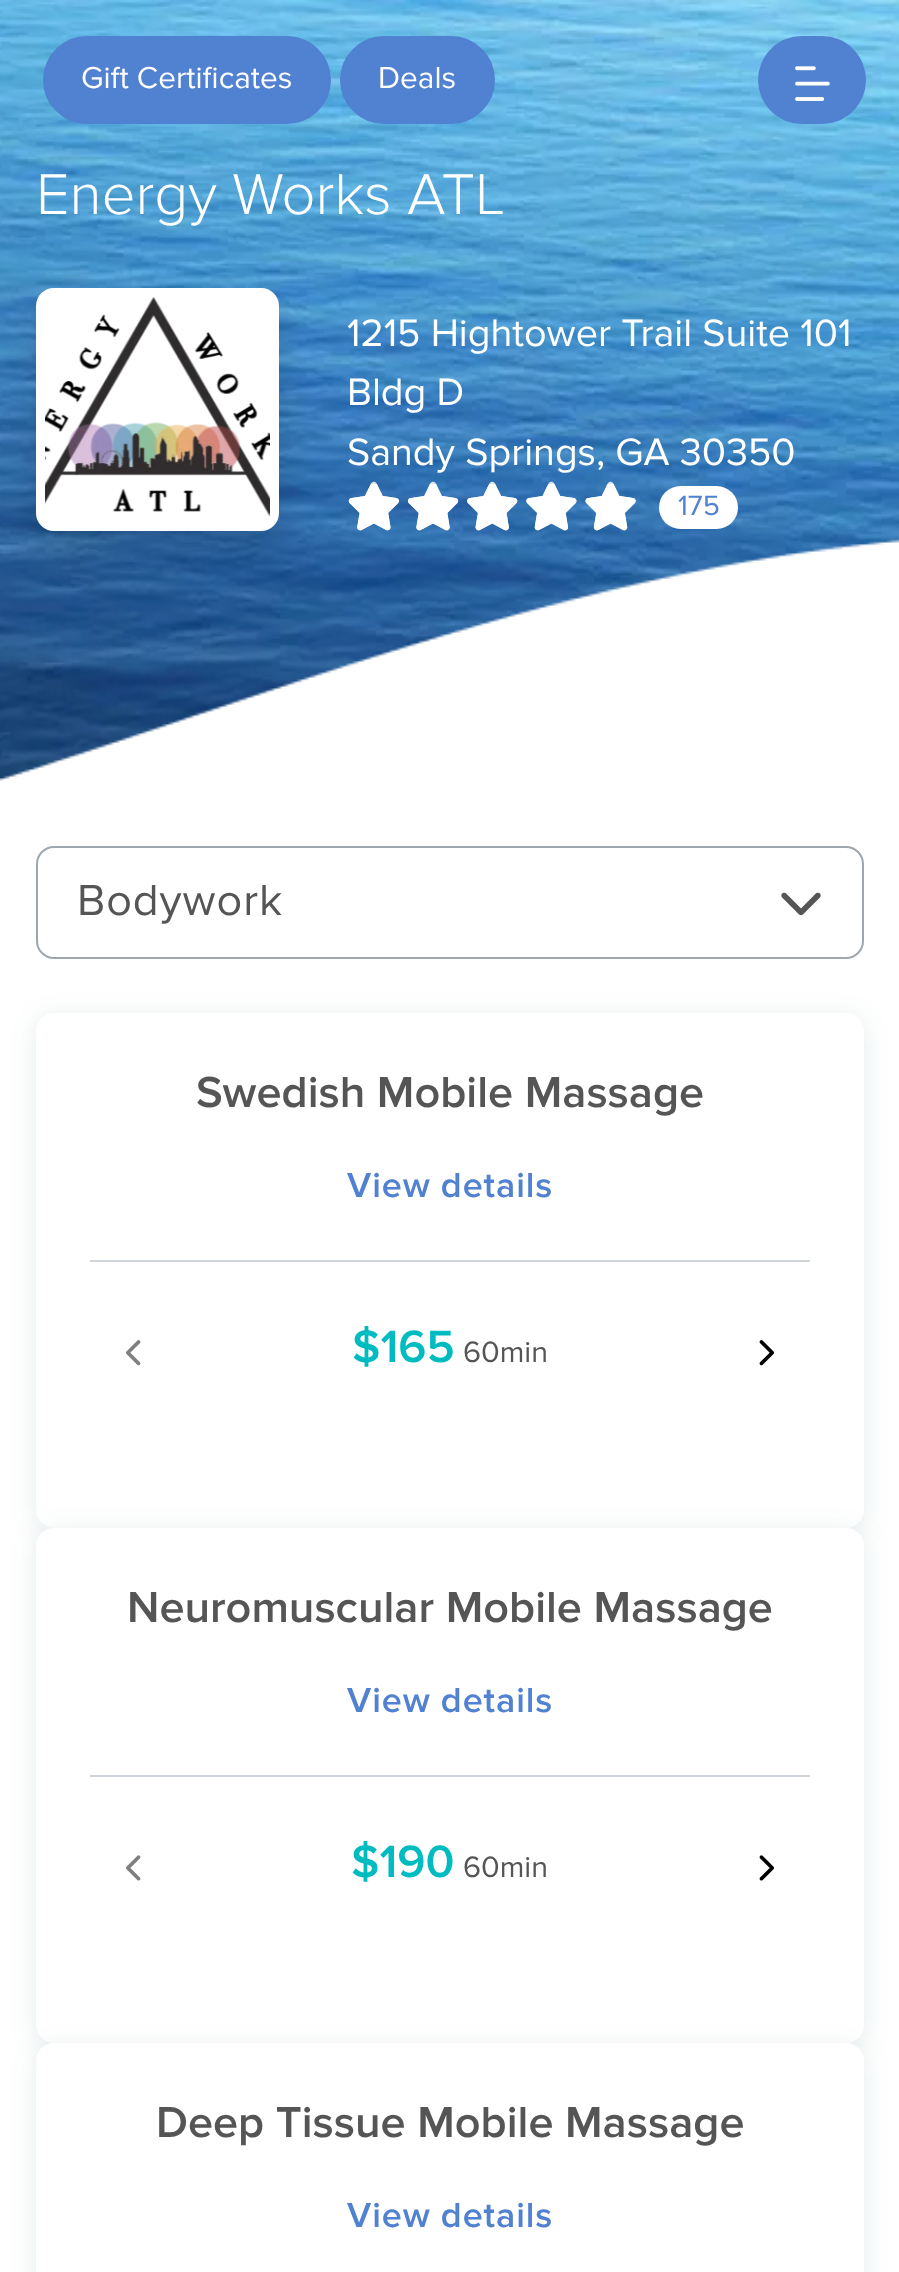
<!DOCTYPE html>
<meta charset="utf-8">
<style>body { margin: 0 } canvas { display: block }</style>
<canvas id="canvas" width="899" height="2272"></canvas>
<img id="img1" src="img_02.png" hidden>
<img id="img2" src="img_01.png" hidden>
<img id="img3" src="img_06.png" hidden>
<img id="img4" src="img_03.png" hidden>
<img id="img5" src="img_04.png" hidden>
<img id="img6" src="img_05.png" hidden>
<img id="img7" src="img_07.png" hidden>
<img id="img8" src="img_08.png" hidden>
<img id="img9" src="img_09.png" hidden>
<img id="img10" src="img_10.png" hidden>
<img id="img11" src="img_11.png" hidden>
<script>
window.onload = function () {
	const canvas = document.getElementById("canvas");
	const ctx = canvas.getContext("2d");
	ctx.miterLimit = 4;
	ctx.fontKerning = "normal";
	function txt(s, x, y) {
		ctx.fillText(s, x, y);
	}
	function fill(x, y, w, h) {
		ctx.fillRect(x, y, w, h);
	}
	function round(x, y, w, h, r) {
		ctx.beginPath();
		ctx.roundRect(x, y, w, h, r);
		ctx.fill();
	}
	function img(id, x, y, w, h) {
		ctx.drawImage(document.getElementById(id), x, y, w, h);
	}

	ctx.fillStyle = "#FFFFFF";
	fill(0, 0, 899, 2272);
	img("img1", 0, 0, 899, 782);
	ctx.fillStyle = "#5181D1";
	ctx.beginPath();
	ctx.roundRect(44, 37, 286, 86, 43);
	ctx.fill();
	ctx.strokeStyle = "#5181D1";
	ctx.lineWidth = 2;
	ctx.stroke();
	ctx.beginPath();
	ctx.roundRect(341, 37, 153, 86, 43);
	ctx.fill();
	ctx.stroke();
	round(758, 36, 108, 88, 44);
	img("img2", 795, 66, 35, 35);
	img("img3", 0, 539, 899, 361);
	ctx.fillStyle = "rgba(0, 0, 0, 0.15)";
	ctx.filter = "blur(18px)";
	ctx.beginPath();
	ctx.roundRect(36, 306, 243, 243, 18);
	ctx.fill();
	ctx.filter = "none";
	ctx.fillStyle = "#FFFFFF";
	ctx.beginPath();
	ctx.roundRect(40.5, 292.5, 234, 234, 13.5);
	ctx.fill();
	ctx.strokeStyle = "#FFFFFF";
	ctx.lineWidth = 9;
	ctx.stroke();
	img("img4", 45, 297, 225, 220);
	img("img5", 348, 481, 288, 50);
	img("img6", 348, 484, 288, 47);
	round(659, 486, 79, 43, 21.5);
	ctx.beginPath();
	ctx.roundRect(37, 847, 826, 111, 17);
	ctx.strokeStyle = "#9DA7AD";
	ctx.lineWidth = 2;
	ctx.stroke();
	img("img7", 781, 892, 40, 24);
	ctx.fillStyle = "rgba(3, 70, 74, 0.1)";
	ctx.filter = "blur(13.5px)";
	ctx.beginPath();
	ctx.roundRect(36, 1017, 828, 515, 18);
	ctx.fill();
	ctx.filter = "none";
	ctx.fillStyle = "#FFFFFF";
	round(36, 1013, 828, 515, 18);
	ctx.fillStyle = "#CED4DA";
	fill(90, 1260, 720, 2);
	img("img8", 126, 1340, 15, 26);
	img("img9", 759, 1340, 15, 26);
	ctx.fillStyle = "rgba(3, 70, 74, 0.1)";
	ctx.filter = "blur(13.5px)";
	ctx.beginPath();
	ctx.roundRect(36, 1532, 828, 516, 18);
	ctx.fill();
	ctx.filter = "none";
	ctx.fillStyle = "#FFFFFF";
	round(36, 1528, 828, 515, 18);
	ctx.fillStyle = "#CED4DA";
	fill(90, 1775, 720, 2);
	img("img10", 126, 1855, 15, 26);
	img("img11", 759, 1855, 15, 26);
	ctx.fillStyle = "rgba(3, 70, 74, 0.1)";
	ctx.filter = "blur(13.5px)";
	ctx.beginPath();
	ctx.roundRect(36, 2048, 828, 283, 18);
	ctx.fill();
	ctx.filter = "none";
	ctx.fillStyle = "#FFFFFF";
	ctx.beginPath();
	ctx.moveTo(54, 2043);
	ctx.lineTo(846, 2043);
	ctx.bezierCurveTo(856, 2043, 864, 2051, 864, 2061);
	ctx.lineTo(864, 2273);
	ctx.lineTo(36, 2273);
	ctx.lineTo(36, 2061);
	ctx.bezierCurveTo(36, 2051, 44, 2043, 54, 2043);
	ctx.closePath();
	ctx.fill();
	ctx.font = "31.5px Proxima Nova";
	txt("Gift Certificates", 81, 88);
	txt("Deals", 378, 88);
	ctx.font = "300 59.5px Proxima Nova";
	txt("Energy Works ATL", 36, 214);
	ctx.font = "39.6px Proxima Nova";
	txt("1215 Hightower Trail Suite 101", 347, 346);
	txt("Bldg D", 347, 405);
	txt("Sandy Springs, GA 30350", 347, 465);
	ctx.font = "29px Proxima Nova";
	ctx.fillStyle = "#5181D1";
	txt("175", 678, 515);
	ctx.letterSpacing = "0.9px";
	ctx.font = "45px Proxima Nova";
	ctx.fillStyle = "#555555";
	txt("Bodywork", 77, 915);
	ctx.letterSpacing = "0px";
	ctx.font = "600 45px Proxima Nova";
	txt("Swedish Mobile Massage", 196, 1107);
	ctx.letterSpacing = "0.9px";
	ctx.font = "600 36px Proxima Nova";
	ctx.fillStyle = "#5181D1";
	txt("View details", 347, 1197);
	ctx.letterSpacing = "0px";
	ctx.font = "600 47px Proxima Nova";
	ctx.fillStyle = "#00BCC0";
	txt("$165", 352, 1362);
	ctx.font = "30.5px Proxima Nova";
	ctx.fillStyle = "#555555";
	txt("60min", 463, 1362);
	ctx.font = "600 45px Proxima Nova";
	txt("Neuromuscular Mobile Massage", 127, 1622);
	ctx.letterSpacing = "0.9px";
	ctx.font = "600 36px Proxima Nova";
	ctx.fillStyle = "#5181D1";
	txt("View details", 347, 1712);
	ctx.letterSpacing = "0px";
	ctx.font = "600 47px Proxima Nova";
	ctx.fillStyle = "#00BCC0";
	txt("$190", 351, 1877);
	ctx.font = "30.5px Proxima Nova";
	ctx.fillStyle = "#555555";
	txt("60min", 463, 1877);
	ctx.font = "600 45px Proxima Nova";
	txt("Deep Tissue Mobile Massage", 156, 2137);
	ctx.letterSpacing = "0.9px";
	ctx.font = "600 36px Proxima Nova";
	ctx.fillStyle = "#5181D1";
	txt("View details", 347, 2227);
};
</script>
